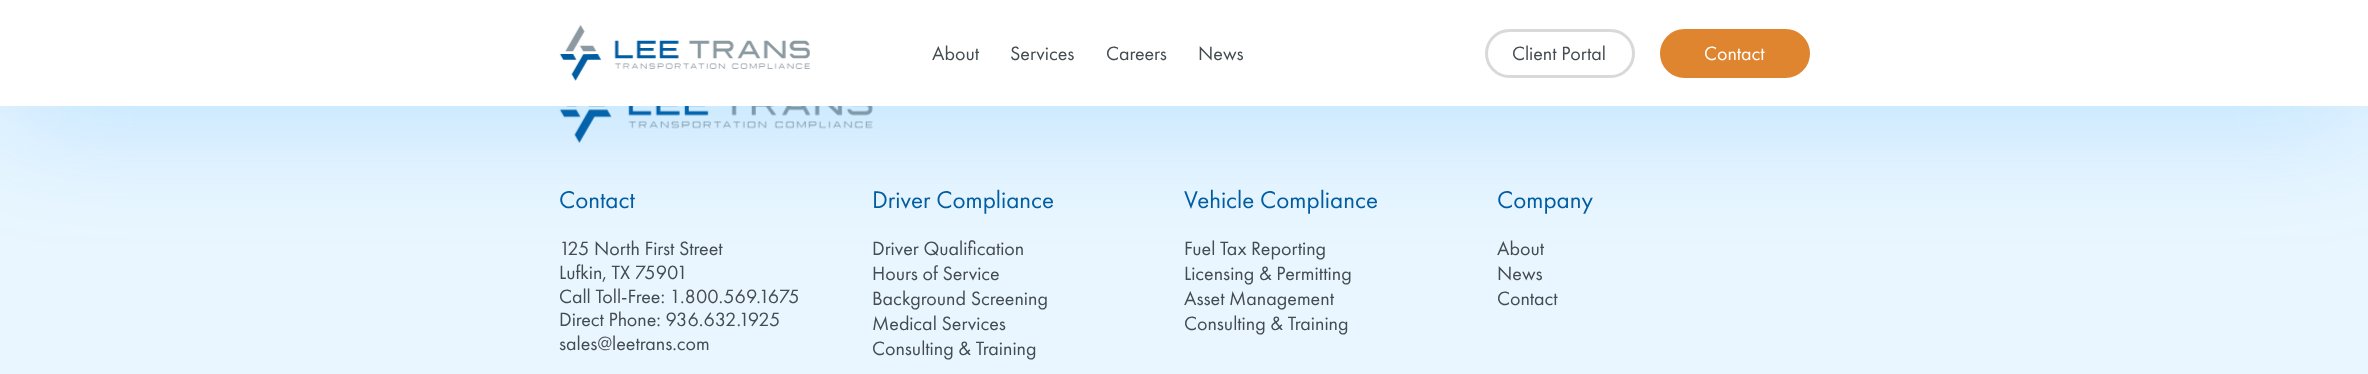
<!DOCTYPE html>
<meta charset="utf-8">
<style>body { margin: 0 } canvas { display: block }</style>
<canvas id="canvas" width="2368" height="374"></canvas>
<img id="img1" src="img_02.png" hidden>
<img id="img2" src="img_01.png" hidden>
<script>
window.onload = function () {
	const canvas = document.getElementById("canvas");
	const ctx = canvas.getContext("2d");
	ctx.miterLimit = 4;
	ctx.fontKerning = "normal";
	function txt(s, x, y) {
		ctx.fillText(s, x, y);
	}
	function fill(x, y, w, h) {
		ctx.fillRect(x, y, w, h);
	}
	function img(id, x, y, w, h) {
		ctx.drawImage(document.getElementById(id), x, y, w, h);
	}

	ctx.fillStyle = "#E9F6FF";
	fill(0, 0, 2368, 374);
	img("img1", 559, 106, 314, 37);
	ctx.fillStyle = "rgba(24, 154, 250, 0.25)";
	ctx.filter = "blur(62.5px)";
	ctx.beginPath();
	ctx.rect(-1, 4, 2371, 109);
	ctx.fill();
	ctx.filter = "none";
	ctx.fillStyle = "#FFFFFF";
	fill(0, 0, 2368, 106);
	img("img2", 559, 25, 251, 56);
	ctx.beginPath();
	ctx.roundRect(1486.5, 30.5, 147, 46, 23);
	ctx.strokeStyle = "#D9D9D9";
	ctx.lineWidth = 3;
	ctx.stroke();
	ctx.fillStyle = "#DF852F";
	ctx.beginPath();
	ctx.roundRect(1661.5, 30.5, 147, 46, 23);
	ctx.fill();
	ctx.strokeStyle = "#DF852F";
	ctx.stroke();
	ctx.font = "20px Futura PT";
	ctx.fillStyle = "#434C50";
	txt("About", 932, 60);
	txt("Services", 1010, 60);
	txt("Careers", 1106, 60);
	txt("News", 1198, 60);
	txt("Client Portal", 1512, 60);
	ctx.fillStyle = "#FFFFFF";
	txt("Contact", 1704, 60);
	ctx.font = "25px Futura PT";
	ctx.fillStyle = "#005DA2";
	txt("Contact", 559, 208);
	ctx.font = "20px Futura PT";
	ctx.fillStyle = "#434C50";
	txt("125 North First Street", 559, 255);
	txt("Lufkin, TX 75901", 559, 279);
	txt("Call Toll-Free: 1.800.569.1675", 559, 303);
	txt("Direct Phone: 936.632.1925", 559, 326);
	txt("sales@leetrans.com", 559, 350);
	ctx.font = "25px Futura PT";
	ctx.fillStyle = "#005DA2";
	txt("Driver Compliance", 872, 208);
	ctx.font = "20px Futura PT";
	ctx.fillStyle = "#434C50";
	txt("Driver Qualification", 872, 255);
	txt("Hours of Service", 872, 280);
	txt("Background Screening", 872, 305);
	txt("Medical Services", 872, 330);
	txt("Consulting & Training", 872, 355);
	ctx.font = "25px Futura PT";
	ctx.fillStyle = "#005DA2";
	txt("Vehicle Compliance", 1184, 208);
	ctx.font = "20px Futura PT";
	ctx.fillStyle = "#434C50";
	txt("Fuel Tax Reporting", 1184, 255);
	txt("Licensing & Permitting", 1184, 280);
	txt("Asset Management", 1184, 305);
	txt("Consulting & Training", 1184, 330);
	ctx.font = "25px Futura PT";
	ctx.fillStyle = "#005DA2";
	txt("Company", 1497, 208);
	ctx.font = "20px Futura PT";
	ctx.fillStyle = "#434C50";
	txt("About", 1497, 255);
	txt("News", 1497, 280);
	txt("Contact", 1497, 305);
};
</script>
